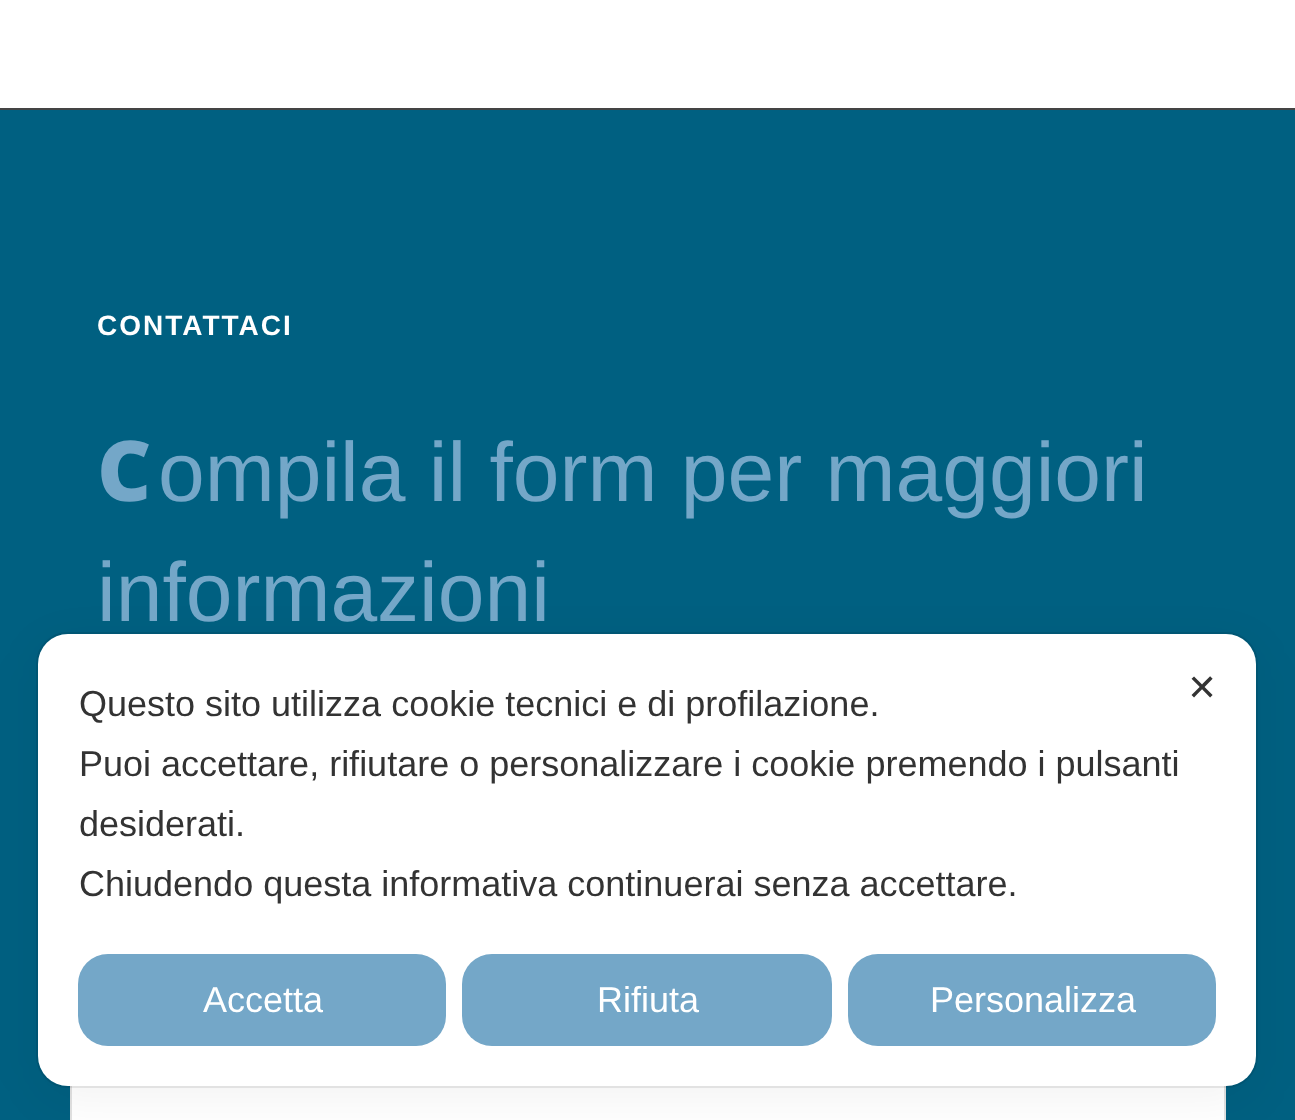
<!DOCTYPE html>
<meta charset="utf-8">
<style>body { margin: 0 } canvas { display: block }</style>
<canvas id="canvas" width="1295" height="1120"></canvas>
<script>
window.onload = function () {
	const canvas = document.getElementById("canvas");
	const ctx = canvas.getContext("2d");
	ctx.miterLimit = 4;
	ctx.fontKerning = "normal";
	function txt(s, x, y) {
		ctx.fillText(s, x, y);
	}
	function fill(x, y, w, h) {
		ctx.fillRect(x, y, w, h);
	}
	function round(x, y, w, h, r) {
		ctx.beginPath();
		ctx.roundRect(x, y, w, h, r);
		ctx.fill();
	}

	ctx.fillStyle = "#FFFFFF";
	fill(0, 0, 1295, 1120);
	ctx.fillStyle = "#006081";
	fill(0, 110, 1295, 1010);
	ctx.fillStyle = "#444444";
	fill(0, 108, 1295, 2);
	ctx.fillStyle = "#FFFFFF";
	fill(72, 1086, 1152, 34);
	ctx.strokeStyle = "#E1E1E1";
	ctx.lineWidth = 2;
	ctx.strokeRect(71, 871, 1154, 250);
	ctx.beginPath();
	ctx.roundRect(37, 633, 1220, 454, 31);
	ctx.strokeStyle = "rgba(0, 0, 0, 0.08)";
	ctx.stroke();
	ctx.fillStyle = "rgba(0, 0, 0, 0.05)";
	ctx.filter = "blur(24px)";
	ctx.beginPath();
	ctx.roundRect(38, 646, 1218, 452, 30);
	ctx.fill();
	ctx.filter = "none";
	ctx.fillStyle = "#FFFFFF";
	round(38, 634, 1218, 452, 30);
	ctx.fillStyle = "#74A7C8";
	round(78, 954, 368, 92, 30);
	round(462, 954, 370, 92, 30);
	round(848, 954, 368, 92, 30);
	ctx.letterSpacing = "2px";
	ctx.font = "bold 28px Liberation Sans";
	ctx.fillStyle = "#FFFFFF";
	txt("CONTATTACI", 97, 335);
	ctx.letterSpacing = "0px";
	ctx.font = "900 84px Noto Sans";
	ctx.fillStyle = "#74A7C8";
	txt("C", 97, 501);
	ctx.font = "84px Liberation Sans";
	txt("ompila il form per maggiori", 158, 501);
	txt("informazioni", 97, 621);
	ctx.font = "36px Liberation Sans";
	ctx.fillStyle = "#333333";
	txt("Questo sito utilizza cookie tecnici e di profilazione.", 79, 716);
	txt("Puoi accettare, rifiutare o personalizzare i cookie premendo i pulsanti", 79, 776);
	txt("desiderati.", 79, 836);
	txt("Chiudendo questa informativa continuerai senza accettare.", 79, 896);
	ctx.fillStyle = "#FFFFFF";
	txt("Accetta", 203, 1012);
	txt("Rifiuta", 597, 1012);
	txt("Personalizza", 930, 1012);
	ctx.font = "36px DejaVu Sans";
	ctx.fillStyle = "#333333";
	txt("✕", 1187, 700);
};
</script>
